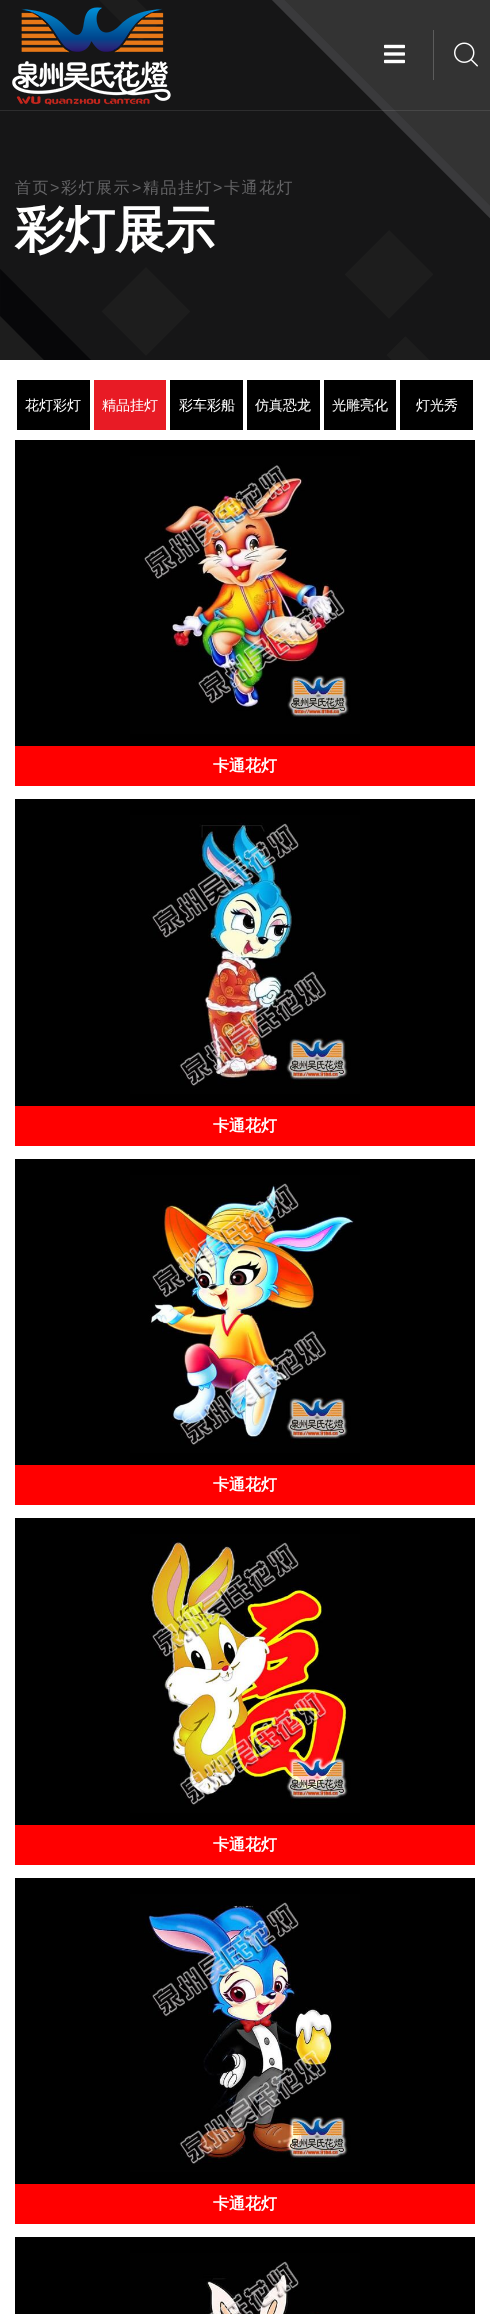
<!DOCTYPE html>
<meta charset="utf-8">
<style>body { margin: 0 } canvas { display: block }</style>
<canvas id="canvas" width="490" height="2314"></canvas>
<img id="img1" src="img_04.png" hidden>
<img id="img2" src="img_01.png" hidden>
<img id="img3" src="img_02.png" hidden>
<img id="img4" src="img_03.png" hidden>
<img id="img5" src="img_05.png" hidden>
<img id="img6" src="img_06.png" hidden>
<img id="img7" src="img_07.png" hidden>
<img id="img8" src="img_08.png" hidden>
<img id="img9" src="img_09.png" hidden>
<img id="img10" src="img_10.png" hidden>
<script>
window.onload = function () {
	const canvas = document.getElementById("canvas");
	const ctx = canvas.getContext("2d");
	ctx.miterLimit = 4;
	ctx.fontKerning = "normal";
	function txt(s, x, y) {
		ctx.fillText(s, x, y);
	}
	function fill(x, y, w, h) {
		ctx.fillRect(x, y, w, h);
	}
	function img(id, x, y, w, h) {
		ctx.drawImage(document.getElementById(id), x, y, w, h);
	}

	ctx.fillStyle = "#FFFFFF";
	fill(0, 0, 490, 2314);
	ctx.fillStyle = "#333333";
	fill(284, 0, 206, 206);
	img("img1", 0, 0, 490, 360);
	ctx.fillStyle = "rgba(255, 255, 255, 0.1)";
	fill(0, 110, 490, 1);
	img("img2", 12, 7, 159, 98);
	img("img3", 384, 44, 21, 20);
	ctx.fillStyle = "#5C5C5C";
	fill(433, 30, 1, 50);
	img("img4", 454, 42, 24, 25);
	ctx.fillStyle = "#000000";
	fill(17, 380, 73, 50);
	ctx.fillStyle = "#E81B25";
	fill(94, 380, 72, 50);
	ctx.fillStyle = "#000000";
	fill(170, 380, 73, 50);
	fill(247, 380, 73, 50);
	fill(324, 380, 72, 50);
	fill(400, 380, 73, 50);
	img("img5", 15, 440, 460, 306);
	ctx.fillStyle = "#FF0000";
	fill(15, 746, 460, 40);
	img("img6", 15, 799, 460, 307);
	fill(15, 1106, 460, 40);
	img("img7", 15, 1159, 460, 306);
	fill(15, 1465, 460, 40);
	img("img8", 15, 1518, 460, 307);
	fill(15, 1825, 460, 40);
	img("img9", 15, 1878, 460, 306);
	fill(15, 2184, 460, 40);
	img("img10", 15, 2237, 460, 77);
	ctx.letterSpacing = "1.5px";
	ctx.font = "500 16px WenQuanYi Zen Hei";
	ctx.fillStyle = "#646466";
	txt("首页", 15, 193);
	ctx.font = "16px Liberation Sans";
	txt(">", 50, 193);
	ctx.font = "500 16px WenQuanYi Zen Hei";
	txt("彩灯展示", 61, 193);
	ctx.font = "16px Liberation Sans";
	txt(">", 132, 193);
	ctx.font = "500 16px WenQuanYi Zen Hei";
	txt("精品挂灯", 143, 193);
	ctx.font = "16px Liberation Sans";
	txt(">", 213, 193);
	ctx.font = "500 16px WenQuanYi Zen Hei";
	txt("卡通花灯", 224, 193);
	ctx.letterSpacing = "0px";
	ctx.font = "bold 50px WenQuanYi Zen Hei";
	ctx.fillStyle = "#FFFFFF";
	txt("彩灯展示", 15, 247);
	ctx.font = "500 14px WenQuanYi Zen Hei";
	txt("花灯彩灯", 25, 410);
	txt("精品挂灯", 102, 410);
	txt("彩车彩船", 179, 410);
	txt("仿真恐龙", 255, 410);
	txt("光雕亮化", 332, 410);
	txt("灯光秀", 416, 410);
	ctx.font = "bold 16px WenQuanYi Zen Hei";
	txt("卡通花灯", 213, 771);
	txt("卡通花灯", 213, 1131);
	txt("卡通花灯", 213, 1490);
	txt("卡通花灯", 213, 1850);
	txt("卡通花灯", 213, 2209);
};
</script>
